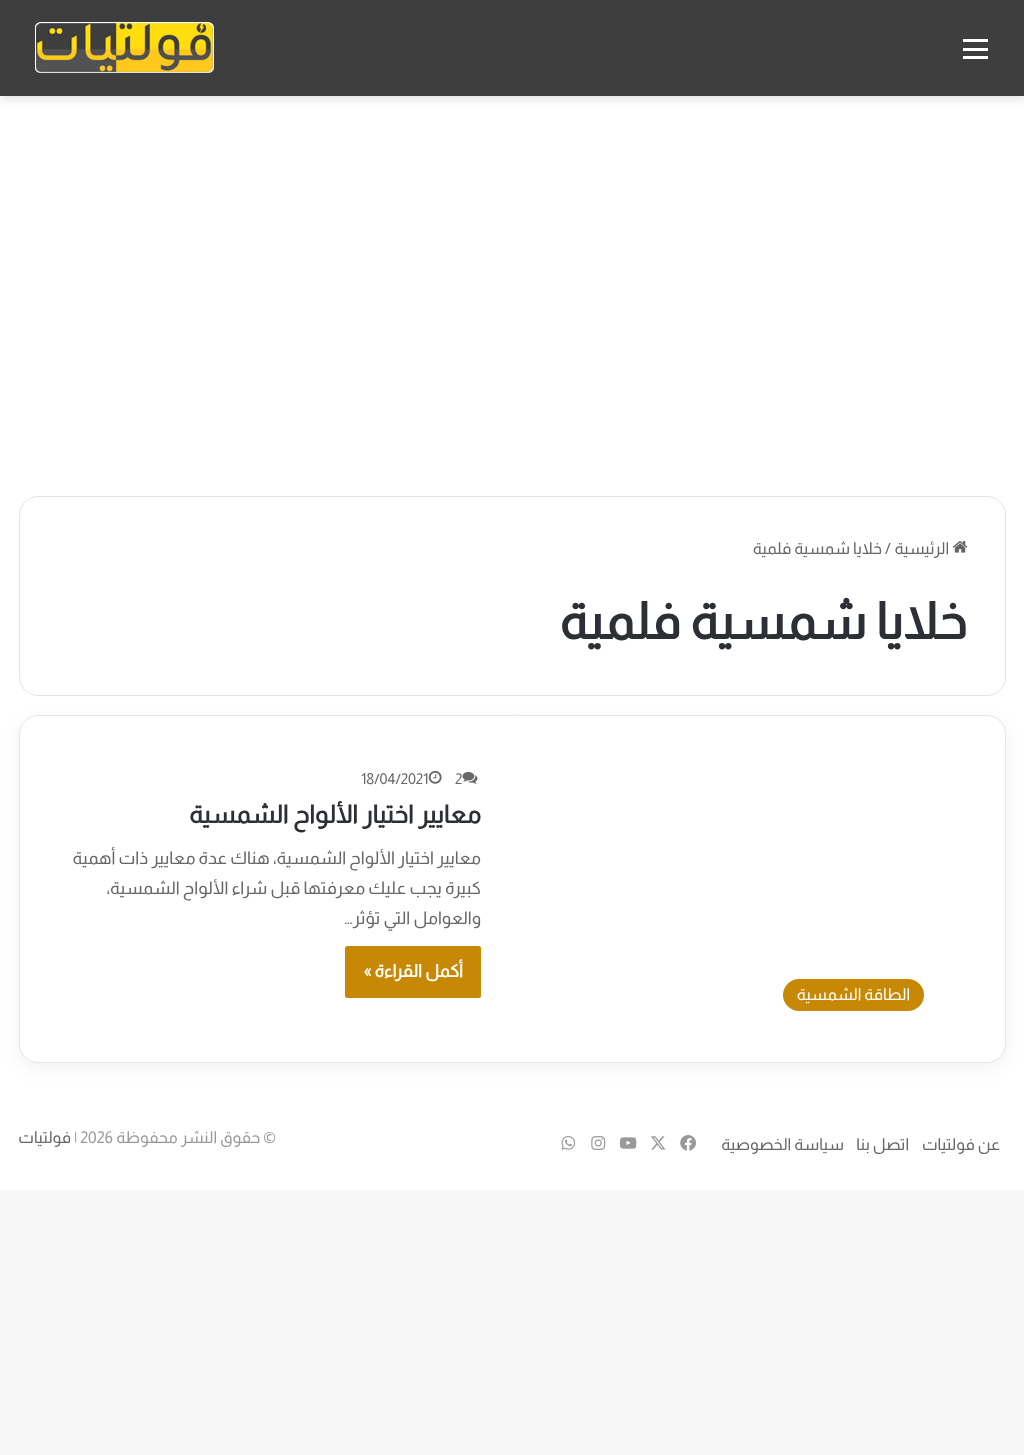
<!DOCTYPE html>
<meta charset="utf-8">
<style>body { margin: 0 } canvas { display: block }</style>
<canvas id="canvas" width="1024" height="1455"></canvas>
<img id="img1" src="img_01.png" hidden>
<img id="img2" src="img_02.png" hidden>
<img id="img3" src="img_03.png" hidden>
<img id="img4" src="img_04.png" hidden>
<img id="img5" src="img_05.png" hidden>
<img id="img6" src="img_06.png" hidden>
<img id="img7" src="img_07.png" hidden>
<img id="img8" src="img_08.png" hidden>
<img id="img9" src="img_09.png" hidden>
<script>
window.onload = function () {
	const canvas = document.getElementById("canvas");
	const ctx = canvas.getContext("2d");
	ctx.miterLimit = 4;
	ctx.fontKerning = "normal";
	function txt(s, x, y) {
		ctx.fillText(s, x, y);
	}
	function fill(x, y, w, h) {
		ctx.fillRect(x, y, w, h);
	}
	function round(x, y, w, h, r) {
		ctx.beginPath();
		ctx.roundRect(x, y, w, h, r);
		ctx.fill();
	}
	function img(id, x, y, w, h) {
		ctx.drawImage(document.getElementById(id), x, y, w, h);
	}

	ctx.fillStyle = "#F7F7F7";
	fill(0, 0, 1024, 1455);
	ctx.fillStyle = "#FFFFFF";
	fill(0, 96, 1024, 1094);
	ctx.fillStyle = "rgba(0, 0, 0, 0.1)";
	ctx.filter = "blur(4.5px)";
	ctx.beginPath();
	ctx.rect(0, 4, 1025, 96);
	ctx.fill();
	ctx.filter = "none";
	ctx.fillStyle = "#3E3E3E";
	fill(0, 0, 1024, 96);
	ctx.fillStyle = "#FFFFFF";
	fill(963, 48, 25, 3);
	fill(963, 39, 25, 3);
	fill(963, 56, 25, 3);
	img("img1", 35, 22, 179, 51);
	ctx.beginPath();
	ctx.roundRect(19.5, 496.5, 986, 199, 18.5);
	ctx.strokeStyle = "#E5E5E5";
	ctx.stroke();
	img("img2", 952, 541, 16, 12);
	ctx.fillStyle = "rgba(0, 0, 0, 0.05)";
	ctx.filter = "blur(9.5px)";
	ctx.beginPath();
	ctx.roundRect(19, 721, 987, 348, 19);
	ctx.fill();
	ctx.filter = "none";
	ctx.fillStyle = "#FFFFFF";
	ctx.beginPath();
	ctx.roundRect(19.5, 715.5, 986, 347, 18.5);
	ctx.fill();
	ctx.strokeStyle = "#E6E6E6";
	ctx.stroke();
	img("img3", 462, 772, 16, 12);
	img("img4", 428, 770, 14, 14);
	ctx.fillStyle = "#C78905";
	round(345, 946, 136, 52, 2.5);
	round(783, 979, 141, 32, 16);
	img("img5", 680, 1135, 16, 16);
	img("img6", 651, 1136, 15, 14);
	img("img7", 620, 1137, 17, 12);
	img("img8", 591, 1136, 15, 14);
	img("img9", 561, 1136, 15, 14);
	ctx.direction = "rtl";
	ctx.font = "16.25px Almarai";
	ctx.fillStyle = "#666666";
	txt("الرئيسية", 949, 554);
	ctx.direction = "ltr";
	txt("/", 885, 554);
	ctx.direction = "rtl";
	txt("خلايا شمسية فلمية", 882, 554);
	ctx.font = "bold 51.25px Almarai";
	ctx.fillStyle = "#2C2F34";
	txt("خلايا شمسية فلمية", 967, 639);
	ctx.direction = "ltr";
	ctx.font = "15px Almarai";
	ctx.fillStyle = "#666666";
	txt("2", 455, 784);
	txt("18/04/2021", 361, 784);
	ctx.direction = "rtl";
	ctx.font = "bold 25px Almarai";
	ctx.fillStyle = "#2C2F34";
	txt("معايير اختيار الألواح الشمسية", 481, 823);
	ctx.font = "17.5px Almarai";
	ctx.fillStyle = "#666666";
	txt("معايير اختيار الألواح الشمسية، هناك عدة معايير ذات أهمية", 481, 864);
	txt("كبيرة يجب عليك معرفتها قبل شراء الألواح الشمسية،", 481, 894);
	txt("والعوامل التي تؤثر…", 481, 924);
	ctx.font = "bold 17.5px Almarai";
	ctx.fillStyle = "#FFFFFF";
	txt("أكمل القراءة »", 463, 977);
	ctx.font = "16.25px Almarai";
	txt("الطاقة الشمسية", 910, 1000);
	ctx.fillStyle = "#666666";
	txt("عن فولتيات", 1000, 1150);
	txt("اتصل بنا", 909, 1150);
	txt("سياسة الخصوصية", 844, 1150);
	ctx.fillStyle = "#999999";
	txt("© حقوق النشر محفوظة", 276, 1143);
	ctx.direction = "ltr";
	txt("| 2026", 74, 1143);
	ctx.direction = "rtl";
	ctx.fillStyle = "#666666";
	txt("فولتيات", 71, 1143);
};
</script>
